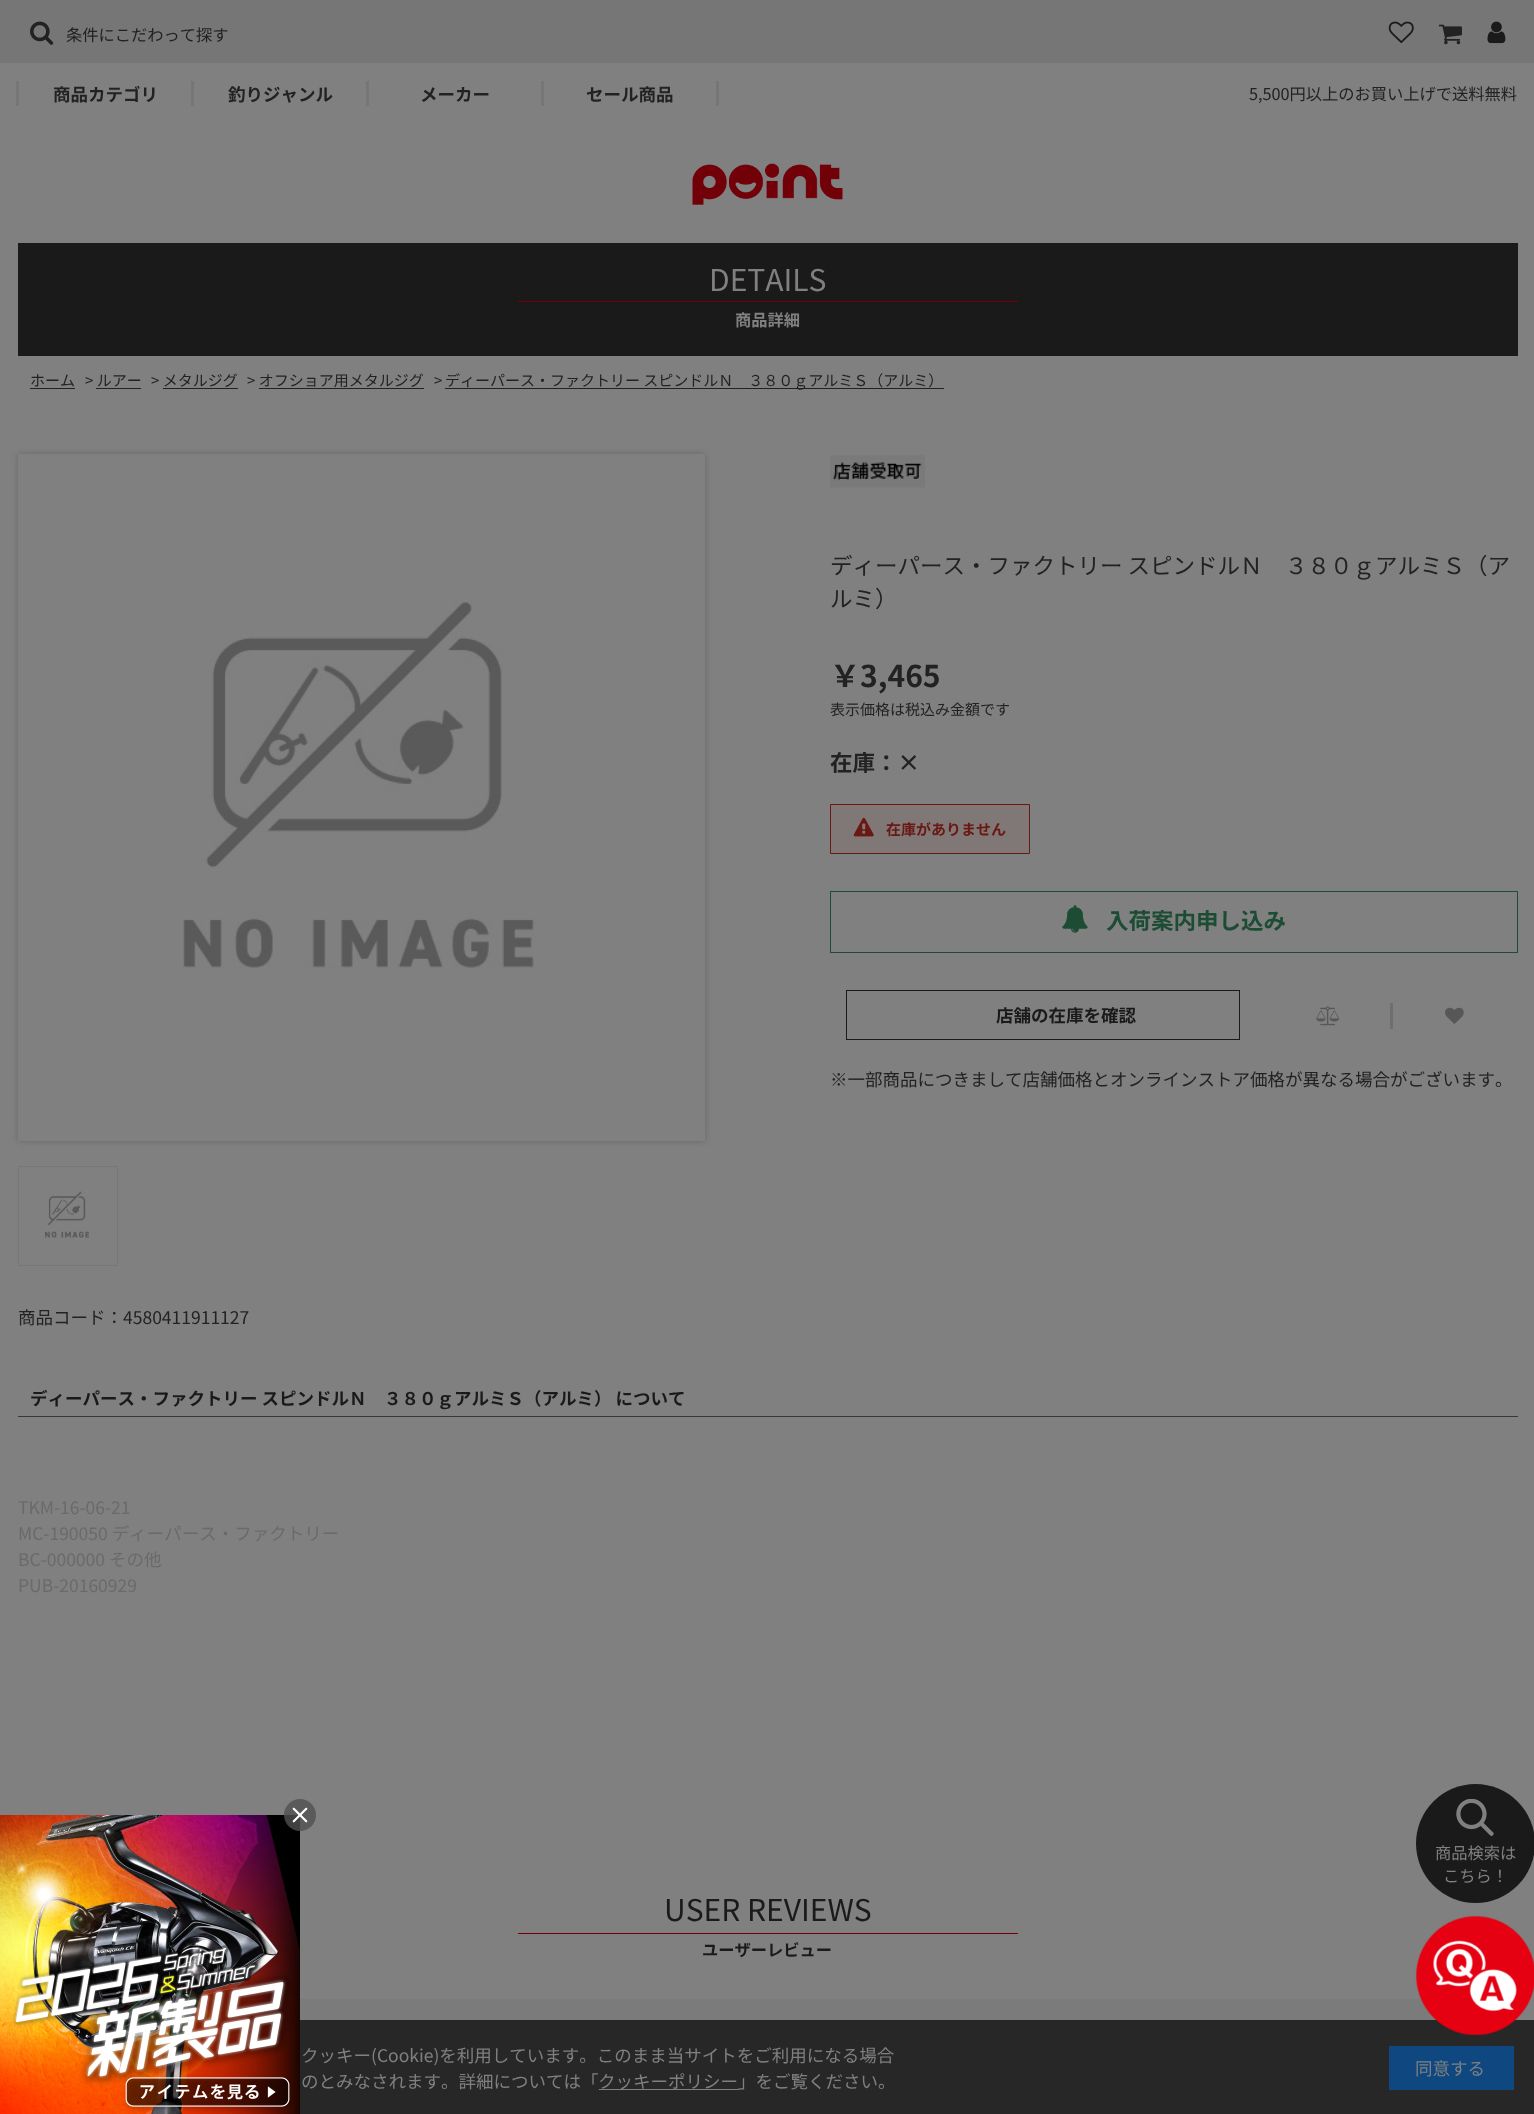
<!DOCTYPE html>
<meta charset="utf-8">
<style>body { margin: 0 } canvas { display: block }</style>
<canvas id="canvas" width="1534" height="2114"></canvas>
<img id="img1" src="img_01.png" hidden>
<img id="img2" src="img_02.png" hidden>
<img id="img3" src="img_03.png" hidden>
<img id="img4" src="img_04.png" hidden>
<img id="img5" src="img_05.png" hidden>
<img id="img6" src="img_06.png" hidden>
<img id="img7" src="img_07.png" hidden>
<img id="img8" src="img_08.png" hidden>
<img id="img9" src="img_09.png" hidden>
<img id="img10" src="img_10.png" hidden>
<img id="img11" src="img_11.png" hidden>
<img id="img12" src="img_12.png" hidden>
<img id="img13" src="img_13.png" hidden>
<img id="img14" src="img_14.png" hidden>
<img id="img15" src="img_15.png" hidden>
<script>
window.onload = function () {
	const canvas = document.getElementById("canvas");
	const ctx = canvas.getContext("2d");
	ctx.miterLimit = 4;
	ctx.fontKerning = "none";
	function txt(s, x, y) {
		ctx.fillText(s, x, y);
	}
	function fill(x, y, w, h) {
		ctx.fillRect(x, y, w, h);
	}
	function img(id, x, y, w, h) {
		ctx.drawImage(document.getElementById(id), x, y, w, h);
	}

	ctx.fillStyle = "#808080";
	fill(0, 0, 1534, 2114);
	ctx.fillStyle = "#272727";
	fill(300, 2020, 1234, 94);
	ctx.fillStyle = "#767676";
	fill(0, 0, 1534, 63);
	img("img1", 30, 21, 24, 24);
	img("img2", 1388, 21, 26, 22);
	img("img3", 1438, 24, 24, 21);
	img("img4", 1487, 21, 19, 23);
	fill(16, 81, 3, 25);
	fill(191, 81, 3, 25);
	fill(366, 81, 3, 25);
	fill(541, 81, 3, 25);
	fill(716, 81, 3, 25);
	img("img5", 692, 163, 151, 42);
	ctx.fillStyle = "#1A1A1A";
	fill(18, 243, 1500, 113);
	ctx.fillStyle = "#730009";
	fill(518, 301, 500, 1);
	ctx.fillStyle = "#222222";
	fill(30, 388, 45, 1);
	fill(96, 388, 45, 1);
	fill(163, 388, 75, 1);
	fill(259, 388, 165, 1);
	fill(445, 388, 499, 1);
	img("img6", 830, 455, 95, 33);
	ctx.fillStyle = "#807777";
	ctx.beginPath();
	ctx.rect(830.5, 804.5, 199, 49);
	ctx.fill();
	ctx.strokeStyle = "#691812";
	ctx.stroke();
	img("img7", 853, 817, 21, 20);
	ctx.strokeStyle = "#1D4C35";
	ctx.strokeRect(830.5, 891.5, 687, 61);
	img("img8", 1062, 905, 26, 28);
	ctx.strokeStyle = "#1A1A1A";
	ctx.strokeRect(846.5, 990.5, 393, 49);
	ctx.fillStyle = "#6F6F6F";
	fill(1390, 1003, 3, 26);
	img("img9", 1316, 1006, 23, 20);
	img("img10", 1445, 1007, 19, 17);
	ctx.save();
	ctx.beginPath();
	ctx.moveTo(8, 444);
	ctx.lineTo(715, 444);
	ctx.lineTo(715, 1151);
	ctx.lineTo(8, 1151);
	ctx.closePath();
	ctx.moveTo(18, 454);
	ctx.lineTo(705, 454);
	ctx.lineTo(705, 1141);
	ctx.lineTo(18, 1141);
	ctx.closePath();
	ctx.clip("evenodd");
	ctx.fillStyle = "#666666";
	ctx.filter = "blur(3px)";
	ctx.beginPath();
	ctx.rect(18, 454, 687, 687);
	ctx.fill();
	ctx.filter = "none";
	ctx.restore();
	img("img11", 183, 602, 351, 366);
	ctx.strokeStyle = "#767676";
	ctx.strokeRect(18.5, 1166.5, 99, 99);
	img("img12", 45, 1191, 44, 47);
	ctx.fillStyle = "#383838";
	fill(18, 1416, 1500, 1);
	ctx.fillStyle = "#730009";
	fill(518, 1933, 500, 1);
	ctx.fillStyle = "#7B7B7B";
	fill(300, 1999, 1218, 21);
	ctx.fillStyle = "#1A1A1A";
	ctx.beginPath();
	ctx.arc(1475.5, 1843.5, 59.5, 0, Math.PI * 2);
	ctx.fill();
	img("img13", 1456, 1799, 38, 37);
	img("img14", 0, 1815, 300, 299);
	ctx.fillStyle = "rgba(80, 80, 80, 0.8)";
	ctx.beginPath();
	ctx.arc(300, 1815, 16, 0, Math.PI * 2);
	ctx.fill();
	ctx.fillStyle = "#FFFFFF";
	ctx.beginPath();
	ctx.moveTo(307, 1808);
	ctx.bezierCurveTo(307.5, 1808.5, 307.5, 1809, 307, 1809.5);
	ctx.lineTo(294.5, 1822);
	ctx.bezierCurveTo(294, 1822.5, 293.5, 1822.5, 293, 1822);
	ctx.bezierCurveTo(292.5, 1821.5, 292.5, 1821, 293, 1820.5);
	ctx.lineTo(305.5, 1808);
	ctx.bezierCurveTo(306, 1807.5, 306.5, 1807.5, 307, 1808);
	ctx.closePath();
	ctx.fill();
	ctx.beginPath();
	ctx.moveTo(293, 1808);
	ctx.bezierCurveTo(293.5, 1807.5, 294, 1807.5, 294.5, 1808);
	ctx.lineTo(307, 1820.5);
	ctx.bezierCurveTo(307.5, 1821, 307.5, 1821.5, 307, 1822);
	ctx.bezierCurveTo(306.5, 1822.5, 306, 1822.5, 305.5, 1822);
	ctx.lineTo(293, 1809.5);
	ctx.bezierCurveTo(292.5, 1809, 292.5, 1808.5, 293, 1808);
	ctx.closePath();
	ctx.fill();
	img("img15", 1415, 1915, 119, 120);
	ctx.fillStyle = "#808080";
	fill(599, 2089, 140, 1);
	ctx.fillStyle = "#0F4880";
	fill(1389, 2046, 125, 44);
	ctx.font = "16.25px Noto Sans JP";
	ctx.fillStyle = "#222222";
	txt("条件にこだわって探す", 66, 41);
	ctx.font = "bold 17.5px Noto Sans JP";
	txt("商品カテゴリ", 53, 101);
	txt("釣りジャンル", 228, 101);
	txt("メーカー", 420, 101);
	txt("セール商品", 586, 101);
	ctx.font = "16.25px Noto Sans JP";
	txt("5,500円以上のお買い上げで送料無料", 1249, 100);
	ctx.font = "30px Noto Sans JP";
	ctx.fillStyle = "#808080";
	txt("DETAILS", 709, 291);
	ctx.font = "bold 16.25px Noto Sans JP";
	txt("商品詳細", 735, 326);
	ctx.font = "15px Noto Sans JP";
	ctx.fillStyle = "#222222";
	txt("ホーム", 30, 386);
	txt("> ルアー", 85, 386);
	txt("> メタルジグ", 151, 386);
	txt("> オフショア用メタルジグ", 247, 386);
	txt(">", 434, 386);
	txt("ディーパース・ファクトリー スピンドルＮ　３８０ｇアルミＳ（アルミ）", 445, 386);
	ctx.font = "22.5px Noto Sans JP";
	txt("ディーパース・ファクトリー スピンドルＮ　３８０ｇアルミＳ（ア", 830, 574);
	txt("ルミ）", 830, 607);
	ctx.font = "bold 30px Noto Sans JP";
	txt("￥3,465", 830, 687);
	ctx.font = "15px Noto Sans JP";
	txt("表示価格は税込み金額です", 830, 715);
	ctx.font = "bold 22.5px Noto Sans JP";
	txt("在庫：×", 830, 771);
	ctx.font = "bold 15px Noto Sans JP";
	ctx.fillStyle = "#691812";
	txt("在庫がありません", 886, 835);
	ctx.font = "bold 22.5px Noto Sans JP";
	ctx.fillStyle = "#1D4C35";
	txt("入荷案内申し込み", 1106, 929);
	ctx.font = "bold 17.5px Noto Sans JP";
	ctx.fillStyle = "#1A1A1A";
	txt("店舗の在庫を確認", 996, 1022);
	ctx.font = "17.5px Noto Sans JP";
	ctx.fillStyle = "#222222";
	txt("※一部商品につきまして店舗価格とオンラインストア価格が異なる場合がございます。", 830, 1086);
	txt("商品コード：4580411911127", 18, 1324);
	ctx.font = "bold 17.5px Noto Sans JP";
	ctx.fillStyle = "#1A1A1A";
	txt("ディーパース・ファクトリー スピンドルＮ　３８０ｇアルミＳ（アルミ） について", 30, 1405);
	ctx.font = "17.5px Noto Sans JP";
	ctx.fillStyle = "#6A6A6A";
	txt("TKM-16-06-21", 18, 1514);
	txt("MC-190050 ディーパース・ファクトリー", 18, 1540);
	txt("BC-000000 その他", 18, 1566);
	txt("PUB-20160929", 18, 1592);
	ctx.font = "30px Noto Sans JP";
	ctx.fillStyle = "#1A1A1A";
	txt("USER REVIEWS", 664, 1921);
	ctx.font = "bold 16.25px Noto Sans JP";
	txt("ユーザーレビュー", 702, 1956);
	ctx.font = "16.25px Noto Sans JP";
	ctx.fillStyle = "#808080";
	txt("商品検索は", 1435, 1859);
	txt("こちら！", 1443, 1882);
	ctx.font = "17.5px Noto Sans JP";
	txt("クッキー(Cookie)を利用しています。このまま当サイトをご利用になる場合", 301, 2062);
	txt("のとみなされます。詳細については「", 301, 2088);
	txt("クッキーポリシー」をご覧ください。", 598, 2088);
	txt("同意する", 1415, 2075);
};
</script>
